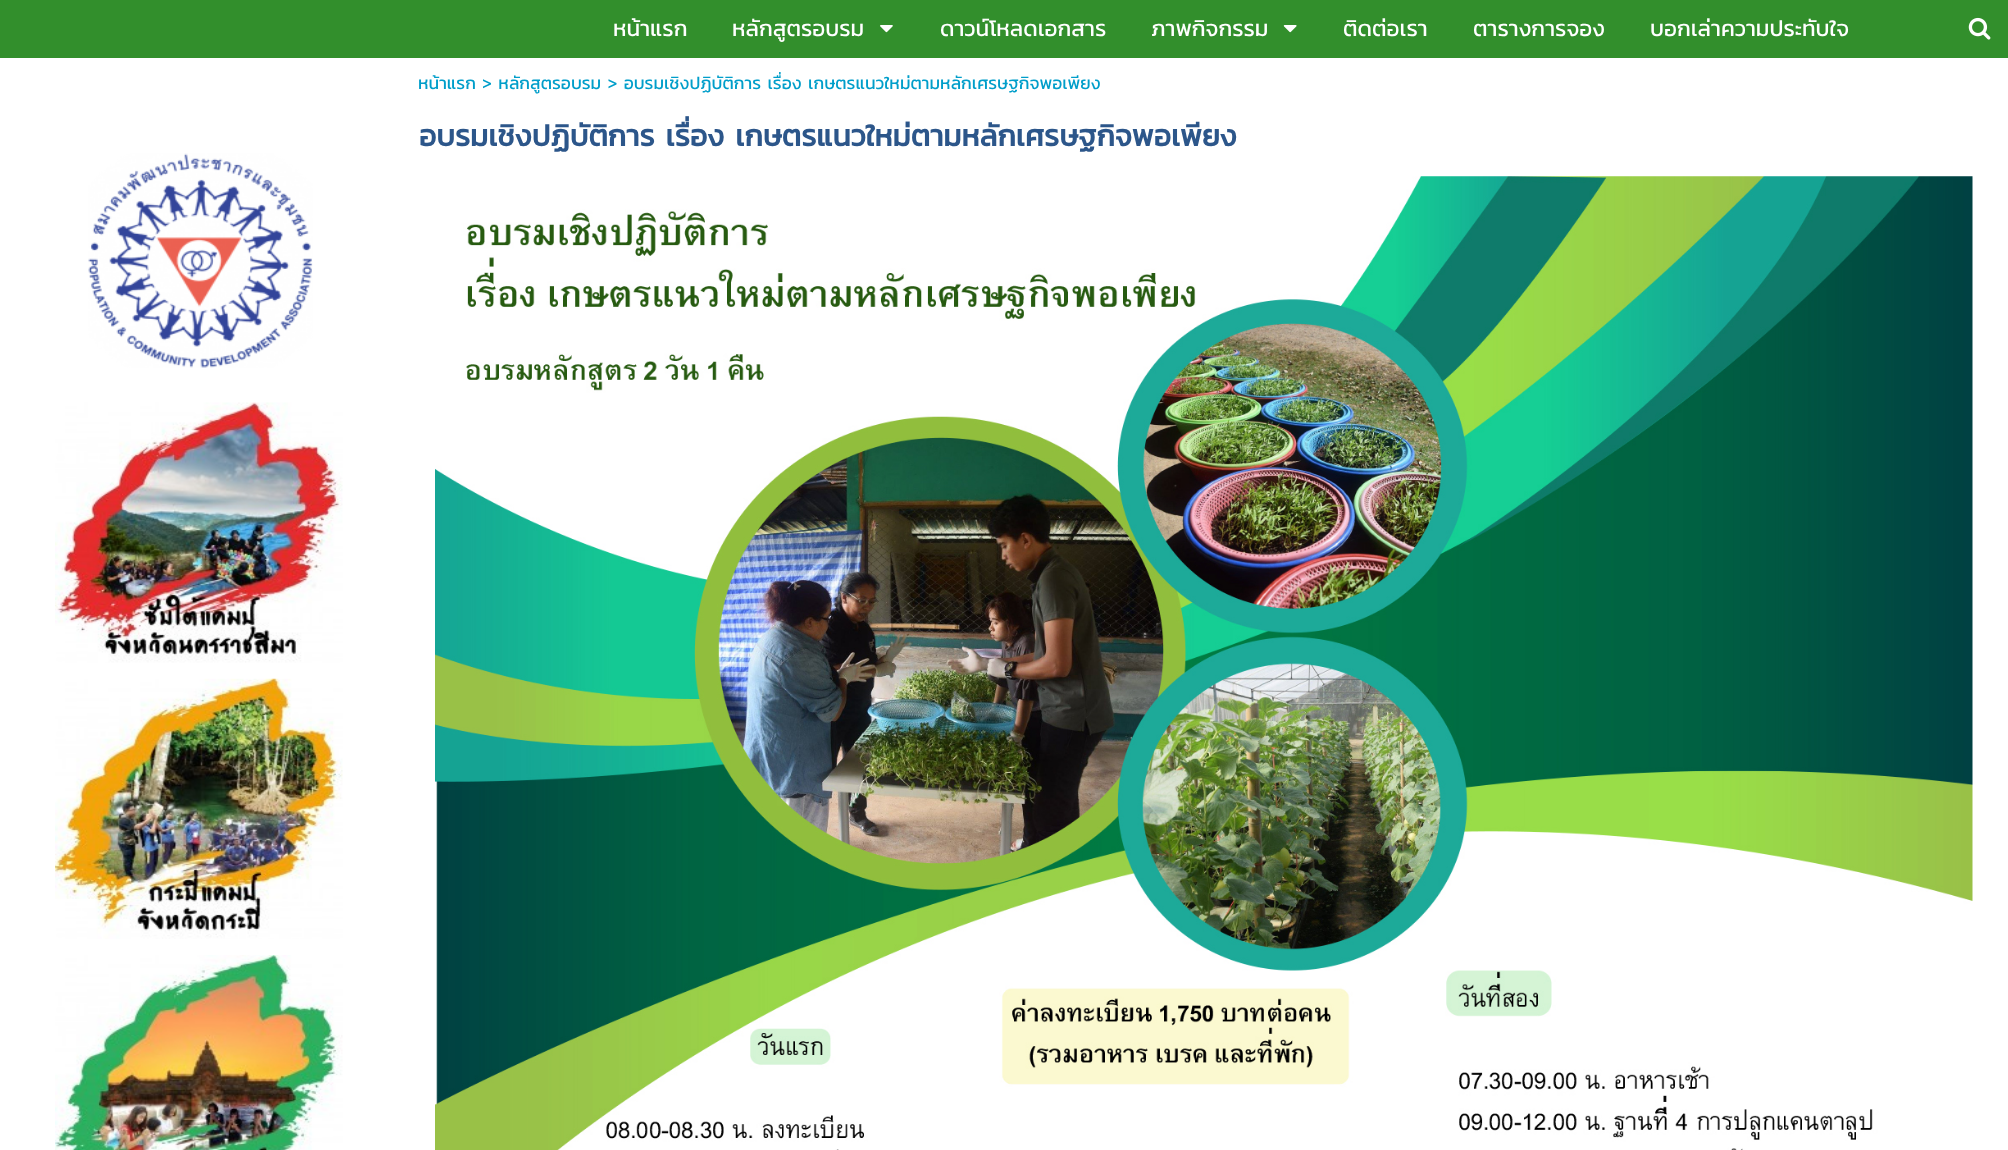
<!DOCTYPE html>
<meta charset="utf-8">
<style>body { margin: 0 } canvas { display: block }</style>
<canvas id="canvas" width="2008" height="1150"></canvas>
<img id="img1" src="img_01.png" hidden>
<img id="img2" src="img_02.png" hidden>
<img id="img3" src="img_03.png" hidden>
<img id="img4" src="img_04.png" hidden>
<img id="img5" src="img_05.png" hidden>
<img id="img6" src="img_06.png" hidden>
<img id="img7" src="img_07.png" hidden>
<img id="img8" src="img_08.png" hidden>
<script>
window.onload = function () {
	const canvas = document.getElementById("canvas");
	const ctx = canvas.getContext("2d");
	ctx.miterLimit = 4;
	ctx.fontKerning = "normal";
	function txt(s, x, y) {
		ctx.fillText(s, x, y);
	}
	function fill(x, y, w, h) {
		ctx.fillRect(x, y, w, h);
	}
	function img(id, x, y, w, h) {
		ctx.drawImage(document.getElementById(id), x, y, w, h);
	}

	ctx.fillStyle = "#FFFFFF";
	fill(0, 0, 2008, 1150);
	ctx.fillStyle = "#328F2C";
	fill(0, 0, 2008, 58);
	img("img1", 880, 25, 13, 8);
	img("img2", 1283, 25, 14, 8);
	img("img3", 1968, 17, 23, 23);
	img("img4", 88, 153, 225, 215);
	img("img5", 55, 402, 288, 261);
	img("img6", 55, 678, 288, 261);
	img("img7", 55, 955, 288, 195);
	img("img8", 435, 176, 1538, 974);
	ctx.font = "22.5px Kanit";
	ctx.fillStyle = "#FFFFFF";
	txt("หน้าแรก", 613, 36);
	txt("หลักสูตรอบรม", 732, 36);
	txt("ดาวน์โหลดเอกสาร", 940, 36);
	txt("ภาพกิจกรรม", 1151, 36);
	txt("ติดต่อเรา", 1343, 36);
	txt("ตารางการจอง", 1473, 36);
	txt("บอกเล่าความประทับใจ", 1650, 36);
	ctx.font = "17.5px Kanit";
	ctx.fillStyle = "#009ECA";
	txt("หน้าแรก > หลักสูตรอบรม > อบรมเชิงปฏิบัติการ เรื่อง เกษตรแนวใหม่ตามหลักเศรษฐกิจพอเพียง", 418, 89);
	ctx.font = "bold 30px Kanit";
	ctx.fillStyle = "#2C568A";
	txt("อบรมเชิงปฏิบัติการ เรื่อง เกษตรแนวใหม่ตามหลักเศรษฐกิจพอเพียง", 419, 146);
};
</script>
